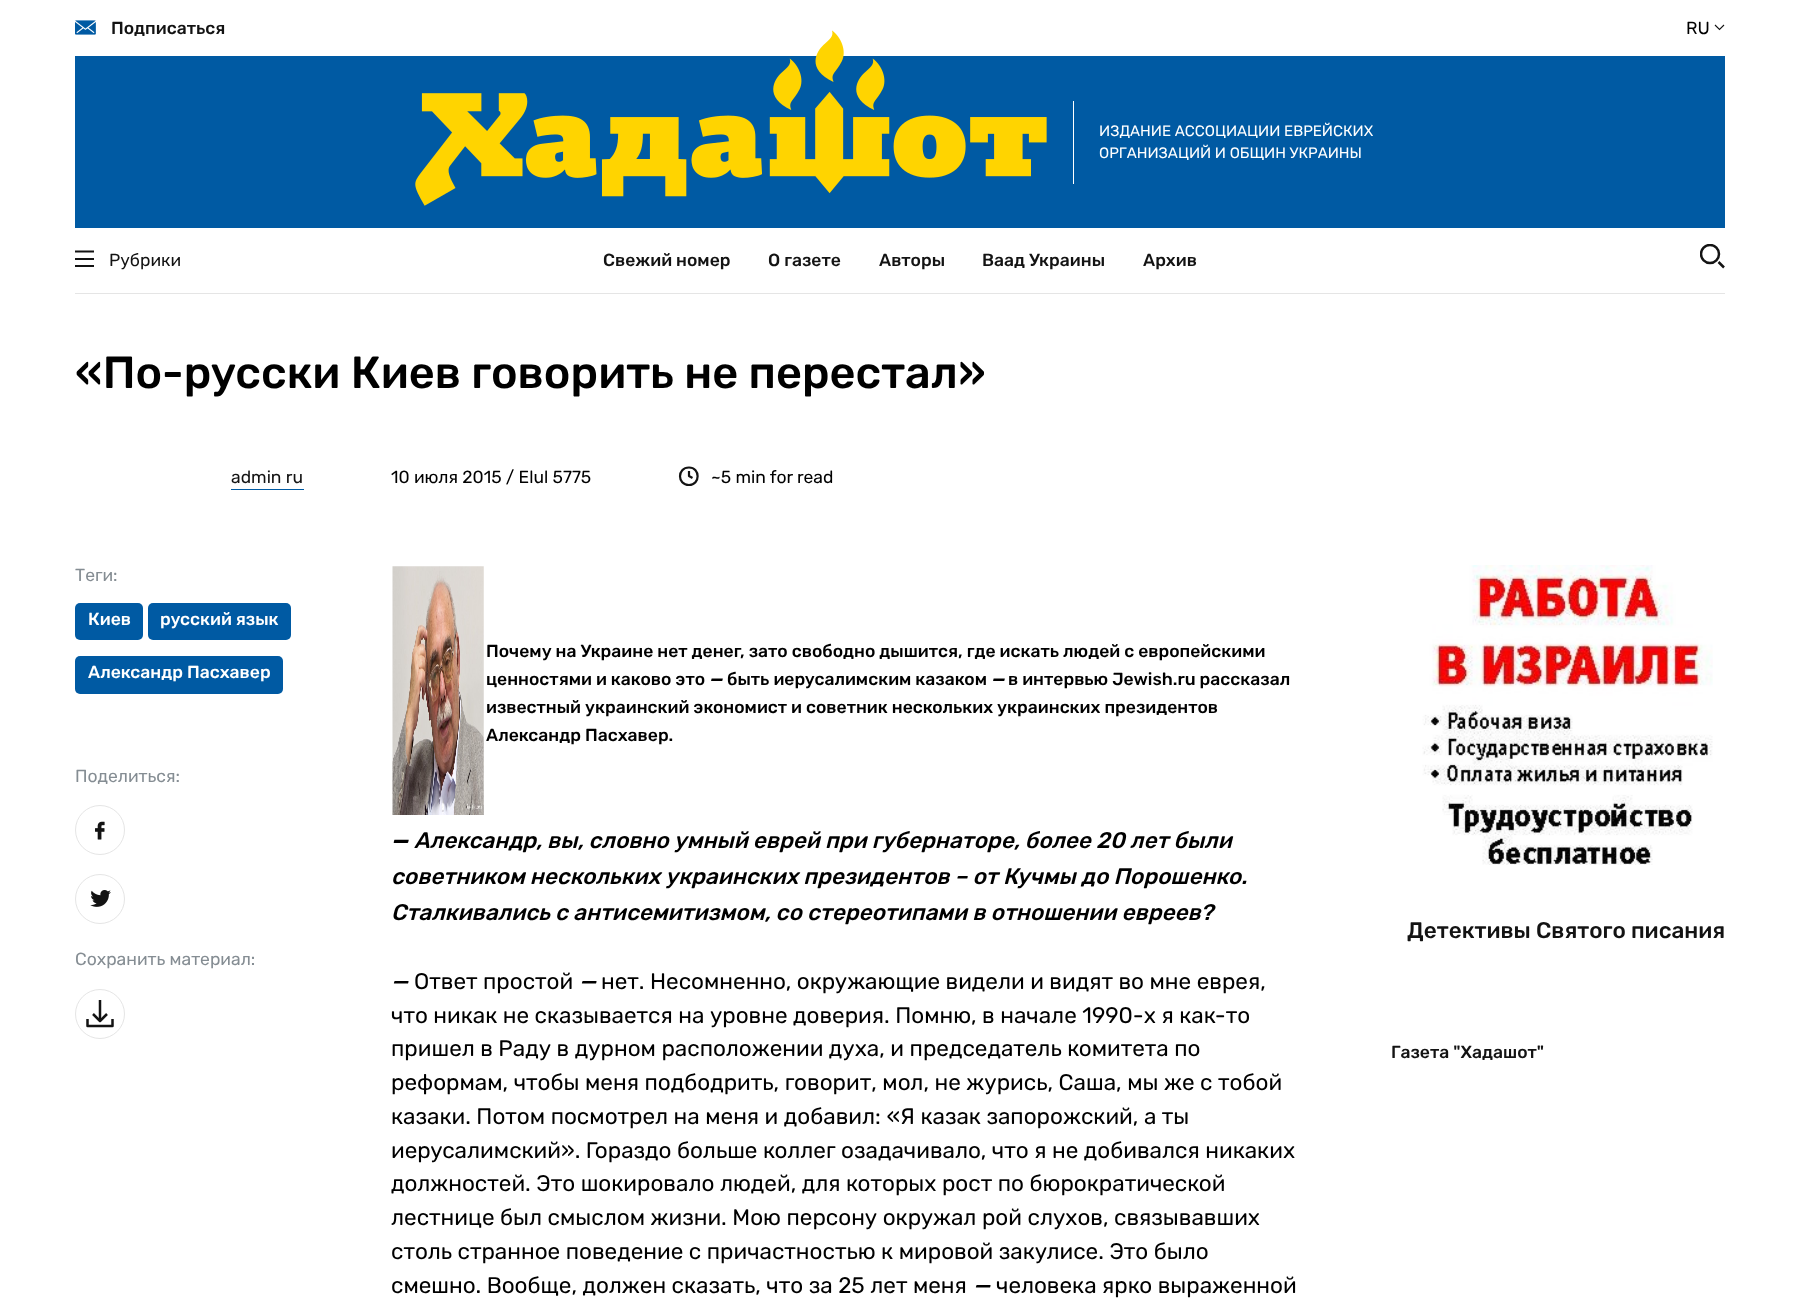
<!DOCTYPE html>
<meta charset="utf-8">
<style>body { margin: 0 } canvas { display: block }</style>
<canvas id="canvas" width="1799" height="1315"></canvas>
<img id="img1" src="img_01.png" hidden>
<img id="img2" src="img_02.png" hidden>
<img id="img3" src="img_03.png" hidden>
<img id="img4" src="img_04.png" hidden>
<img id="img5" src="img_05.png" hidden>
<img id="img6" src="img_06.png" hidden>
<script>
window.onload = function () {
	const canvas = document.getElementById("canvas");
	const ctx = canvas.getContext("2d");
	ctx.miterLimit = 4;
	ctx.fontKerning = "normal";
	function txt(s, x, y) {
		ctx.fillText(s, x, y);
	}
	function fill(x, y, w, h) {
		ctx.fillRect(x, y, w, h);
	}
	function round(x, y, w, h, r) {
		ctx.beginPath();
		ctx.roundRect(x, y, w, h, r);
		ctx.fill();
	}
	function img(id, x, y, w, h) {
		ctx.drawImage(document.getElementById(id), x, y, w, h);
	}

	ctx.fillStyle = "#FFFFFF";
	fill(0, 0, 1799, 1315);
	img("img1", 75, 20, 21, 15);
	ctx.beginPath();
	ctx.moveTo(1715, 25);
	ctx.lineTo(1719.5, 29.5);
	ctx.lineTo(1724, 25);
	ctx.strokeStyle = "#131313";
	ctx.lineWidth = 1.1;
	ctx.stroke();
	ctx.fillStyle = "#005AA3";
	fill(75, 56, 1650, 172);
	img("img2", 415, 30, 632, 176);
	ctx.fillStyle = "#FFFFFF";
	fill(1073, 101, 1, 83);
	ctx.fillStyle = "#E5E5E5";
	fill(75, 293, 1650, 1);
	ctx.beginPath();
	ctx.moveTo(94, 259);
	ctx.lineTo(75, 259);
	ctx.moveTo(94, 251.5);
	ctx.lineTo(75, 251.5);
	ctx.moveTo(94, 266);
	ctx.lineTo(75, 266);
	ctx.lineWidth = 2.1;
	ctx.stroke();
	ctx.save();
	ctx.beginPath();
	ctx.rect(1700, 244, 25, 25);
	ctx.clip();
	ctx.beginPath();
	ctx.arc(1710, 254, 9, 0, Math.PI * 2);
	ctx.lineWidth = 2.5;
	ctx.stroke();
	ctx.restore();
	ctx.beginPath();
	ctx.moveTo(1718.5, 262);
	ctx.lineTo(1724, 267.5);
	ctx.lineWidth = 2.5;
	ctx.stroke();
	ctx.fillStyle = "#005AA3";
	fill(231, 489, 73, 1);
	ctx.beginPath();
	ctx.moveTo(689, 485);
	ctx.bezierCurveTo(700.5, 485, 700.5, 467.5, 689, 467.5);
	ctx.bezierCurveTo(677, 467.5, 677, 485, 689, 485);
	ctx.closePath();
	ctx.lineWidth = 2.2;
	ctx.lineCap = "round";
	ctx.lineJoin = "round";
	ctx.stroke();
	ctx.beginPath();
	ctx.moveTo(689, 471);
	ctx.lineTo(689, 476);
	ctx.lineTo(692.5, 478);
	ctx.lineCap = "butt";
	ctx.stroke();
	round(75, 603, 68, 37, 5);
	round(148, 603, 143, 37, 5);
	round(75, 656, 208, 38, 5);
	ctx.beginPath();
	ctx.arc(100, 830, 24.5, 0, Math.PI * 2);
	ctx.strokeStyle = "#E5E5E5";
	ctx.lineWidth = 1;
	ctx.stroke();
	img("img3", 95, 821, 10, 19);
	ctx.beginPath();
	ctx.arc(100, 899, 24.5, 0, Math.PI * 2);
	ctx.stroke();
	img("img4", 90, 890, 21, 17);
	ctx.beginPath();
	ctx.arc(100, 1014, 24.5, 0, Math.PI * 2);
	ctx.stroke();
	ctx.beginPath();
	ctx.moveTo(112.5, 1019);
	ctx.lineTo(112.5, 1026);
	ctx.lineTo(87.5, 1026);
	ctx.lineTo(87.5, 1019);
	ctx.strokeStyle = "#131313";
	ctx.lineWidth = 2.5;
	ctx.stroke();
	ctx.beginPath();
	ctx.moveTo(100, 1000);
	ctx.lineTo(100, 1020);
	ctx.lineJoin = "miter";
	ctx.stroke();
	ctx.beginPath();
	ctx.moveTo(107, 1014);
	ctx.lineTo(100, 1021);
	ctx.lineTo(93, 1014);
	ctx.lineJoin = "round";
	ctx.stroke();
	img("img5", 392, 566, 92, 249);
	img("img6", 1422, 565, 291, 300);
	ctx.font = "500 17.5px Rubik";
	ctx.fillStyle = "#131313";
	txt("Подписаться", 111, 34);
	ctx.font = "17.5px Rubik";
	ctx.fillStyle = "#000000";
	txt("RU", 1686, 34);
	ctx.font = "15px Rubik";
	ctx.fillStyle = "#FFFFFF";
	txt("ИЗДАНИЕ АССОЦИАЦИИ ЕВРЕЙСКИХ", 1099, 136);
	txt("ОРГАНИЗАЦИЙ И ОБЩИН УКРАИНЫ", 1099, 158);
	ctx.font = "17.5px Rubik";
	ctx.fillStyle = "#131313";
	txt("Рубрики", 109, 266);
	ctx.font = "500 17.5px Rubik";
	txt("Свежий номер", 603, 266);
	txt("О газете", 768, 266);
	txt("Авторы", 879, 266);
	txt("Ваад Украины", 982, 266);
	txt("Архив", 1143, 266);
	ctx.font = "500 45px Rubik";
	ctx.fillStyle = "#000000";
	txt("«По-русски Киев говорить не перестал»", 75, 388);
	ctx.font = "17.5px Rubik";
	ctx.fillStyle = "#131313";
	txt("admin ru", 231, 483);
	ctx.fillStyle = "#000000";
	txt("10 июля 2015 / Elul 5775", 391, 483);
	txt("~5 min for read", 711, 483);
	ctx.fillStyle = "#858D93";
	txt("Теги:", 75, 581);
	ctx.font = "500 17.5px Rubik";
	ctx.fillStyle = "#FFFFFF";
	txt("Киев", 88, 625);
	txt("русский язык", 160, 625);
	txt("Александр Пасхавер", 88, 678);
	ctx.font = "17.5px Rubik";
	ctx.fillStyle = "#858D93";
	txt("Поделиться:", 75, 782);
	txt("Сохранить материал:", 75, 965);
	ctx.font = "500 17.5px Rubik";
	ctx.fillStyle = "#000000";
	txt("Почему на Украине нет денег, зато свободно дышится, где искать людей с европейскими", 486, 657);
	txt("ценностями и каково это", 486, 685);
	ctx.font = "italic bold 17.5px Rubik";
	txt("—", 709, 685);
	ctx.font = "500 17.5px Rubik";
	txt("быть иерусалимским казаком", 727, 685);
	ctx.font = "italic bold 17.5px Rubik";
	txt("—", 991, 685);
	ctx.font = "500 17.5px Rubik";
	txt("в интервью Jewish.ru рассказал", 1008, 685);
	txt("известный украинский экономист и советник нескольких украинских президентов", 486, 713);
	txt("Александр Пасхавер.", 486, 741);
	ctx.font = "italic bold 22.5px Rubik";
	txt("—", 391, 848);
	ctx.font = "italic 500 22.5px Rubik";
	txt("Александр, вы, словно умный еврей при губернаторе, более 20 лет были", 414, 848);
	txt("советником нескольких украинских президентов – от Кучмы до Порошенко.", 391, 884);
	txt("Сталкивались с антисемитизмом, со стереотипами в отношении евреев?", 391, 920);
	txt("—", 391, 989);
	ctx.font = "22.5px Rubik";
	txt("Ответ простой", 414, 989);
	ctx.font = "italic 500 22.5px Rubik";
	txt("—", 579, 989);
	ctx.font = "22.5px Rubik";
	txt("нет. Несомненно, окружающие видели и видят во мне еврея,", 601, 989);
	txt("что никак не сказывается на уровне доверия. Помню, в начале 1990-х я как-то", 391, 1023);
	txt("пришел в Раду в дурном расположении духа, и председатель комитета по", 391, 1056);
	txt("реформам, чтобы меня подбодрить, говорит, мол, не журись, Саша, мы же с тобой", 391, 1090);
	txt("казаки. Потом посмотрел на меня и добавил: «Я казак запорожский, а ты", 391, 1124);
	txt("иерусалимский». Гораздо больше коллег озадачивало, что я не добивался никаких", 391, 1158);
	txt("должностей. Это шокировало людей, для которых рост по бюрократической", 391, 1191);
	txt("лестнице был смыслом жизни. Мою персону окружал рой слухов, связывавших", 391, 1225);
	txt("столь странное поведение с причастностью к мировой закулисе. Это было", 391, 1259);
	txt("смешно. Вообще, должен сказать, что за 25 лет меня", 391, 1293);
	ctx.font = "italic 500 22.5px Rubik";
	txt("—", 973, 1293);
	ctx.font = "22.5px Rubik";
	txt("человека ярко выраженной", 996, 1293);
	ctx.font = "500 22.5px Rubik";
	ctx.fillStyle = "#131313";
	txt("Детективы Святого писания", 1407, 938);
	ctx.font = "500 17.5px Rubik";
	txt("Газета \"Хадашот\"", 1391, 1058);
};
</script>
